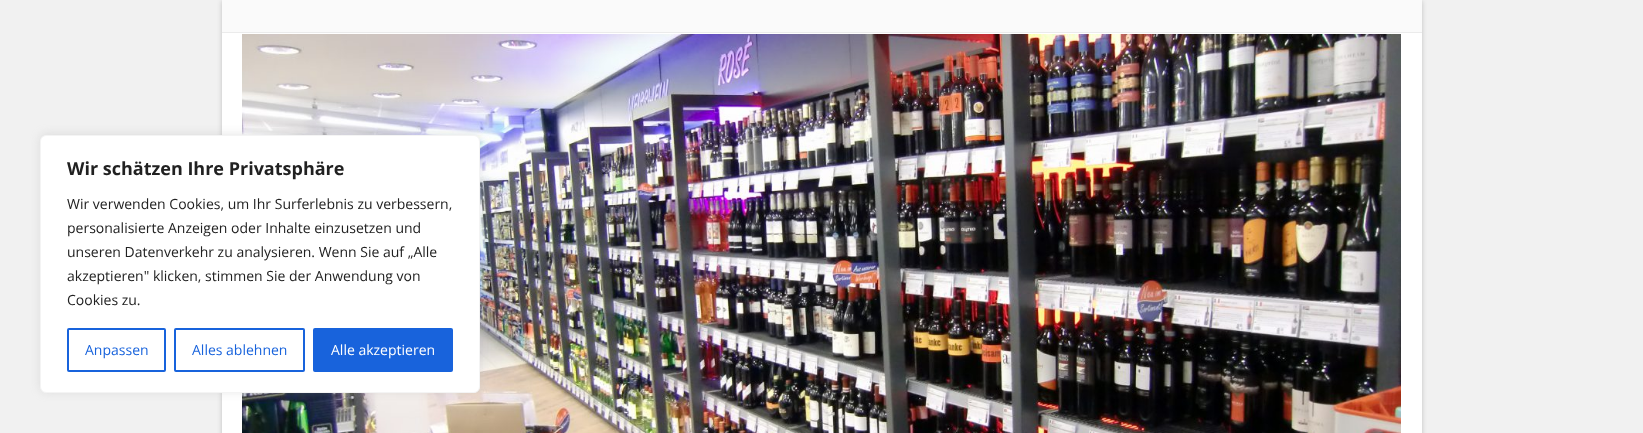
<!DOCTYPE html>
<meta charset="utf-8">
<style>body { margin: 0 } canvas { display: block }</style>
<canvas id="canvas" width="1643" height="433"></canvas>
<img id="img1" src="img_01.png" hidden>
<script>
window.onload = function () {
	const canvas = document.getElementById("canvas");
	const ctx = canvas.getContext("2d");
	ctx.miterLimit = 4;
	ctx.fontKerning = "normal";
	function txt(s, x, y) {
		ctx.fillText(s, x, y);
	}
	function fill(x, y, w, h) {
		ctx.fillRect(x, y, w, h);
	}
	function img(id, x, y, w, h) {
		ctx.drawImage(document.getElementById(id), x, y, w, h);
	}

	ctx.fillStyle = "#F1F1F1";
	fill(0, 0, 1643, 433);
	ctx.fillStyle = "rgba(0, 0, 0, 0.2)";
	ctx.filter = "blur(2.5px)";
	ctx.beginPath();
	ctx.rect(222, 1, 1200, 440);
	ctx.fill();
	ctx.filter = "none";
	ctx.fillStyle = "#FFFFFF";
	fill(222, 33, 1200, 400);
	ctx.fillStyle = "#FAFAFA";
	fill(222, 0, 1200, 32);
	ctx.fillStyle = "#EBEBEB";
	fill(222, 32, 1200, 1);
	img("img1", 242, 34, 1159, 399);
	ctx.fillStyle = "rgba(172, 171, 171, 0.3)";
	ctx.filter = "blur(5px)";
	ctx.beginPath();
	ctx.roundRect(40, 134, 440, 258, 6);
	ctx.fill();
	ctx.filter = "none";
	ctx.fillStyle = "#FFFFFF";
	ctx.beginPath();
	ctx.roundRect(40.5, 135.5, 439, 257, 5.5);
	ctx.fill();
	ctx.strokeStyle = "#F4F4F4";
	ctx.stroke();
	ctx.beginPath();
	ctx.roundRect(68, 329, 97, 42, 1);
	ctx.strokeStyle = "#1863DC";
	ctx.lineWidth = 2;
	ctx.stroke();
	ctx.beginPath();
	ctx.roundRect(175, 329, 129, 42, 1);
	ctx.stroke();
	ctx.fillStyle = "#1863DC";
	ctx.beginPath();
	ctx.roundRect(314, 329, 138, 42, 1);
	ctx.fill();
	ctx.stroke();
	ctx.font = "bold 18px Open Sans";
	ctx.fillStyle = "#212121";
	txt("Wir schätzen Ihre Privatsphäre", 67, 175);
	ctx.font = "14px Open Sans";
	txt("Wir verwenden Cookies, um Ihr Surferlebnis zu verbessern,", 67, 209);
	txt("personalisierte Anzeigen oder Inhalte einzusetzen und", 67, 233);
	txt("unseren Datenverkehr zu analysieren. Wenn Sie auf „Alle", 67, 257);
	txt("akzeptieren\" klicken, stimmen Sie der Anwendung von", 67, 281);
	txt("Cookies zu.", 67, 305);
	ctx.fillStyle = "#1863DC";
	txt("Anpassen", 85, 355);
	txt("Alles ablehnen", 192, 355);
	ctx.fillStyle = "#FFFFFF";
	txt("Alle akzeptieren", 331, 355);
};
</script>
